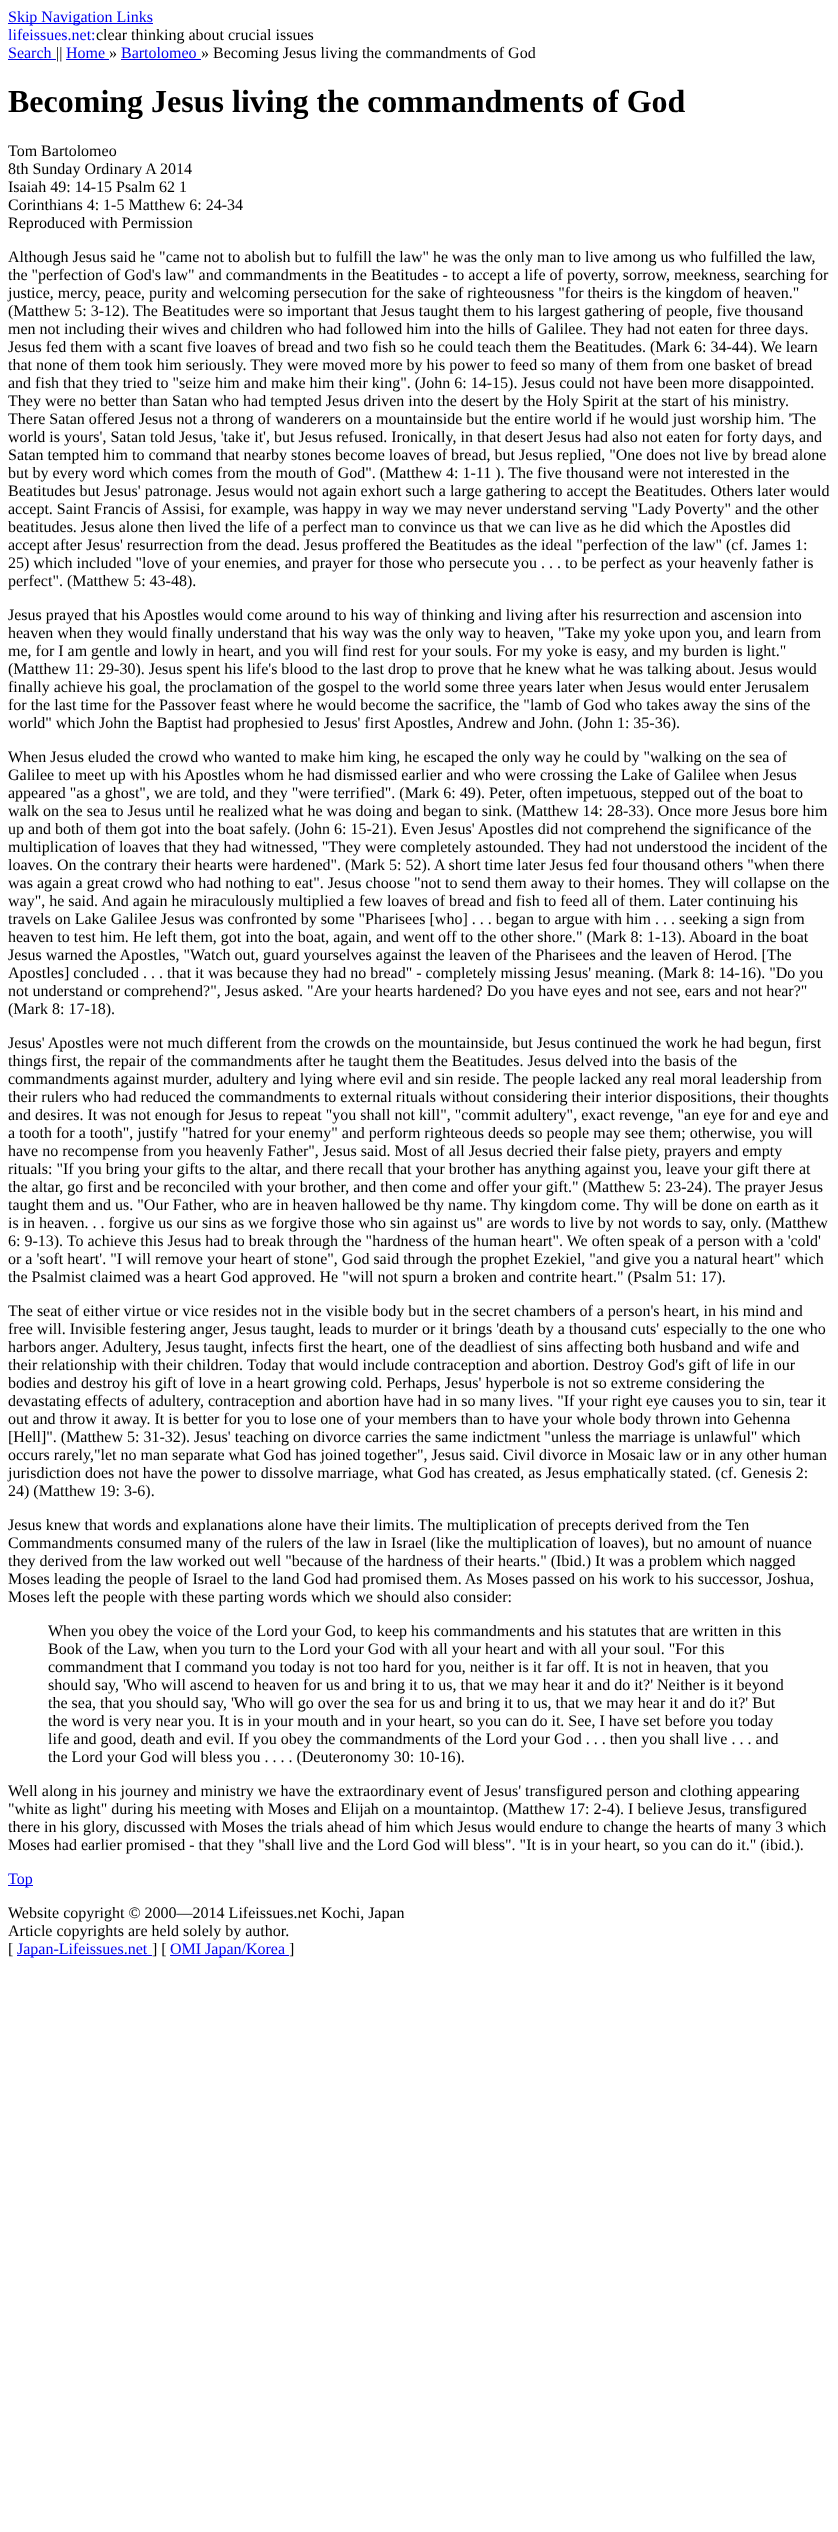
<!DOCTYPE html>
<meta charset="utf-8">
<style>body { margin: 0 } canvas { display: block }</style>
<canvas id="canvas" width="838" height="2532"></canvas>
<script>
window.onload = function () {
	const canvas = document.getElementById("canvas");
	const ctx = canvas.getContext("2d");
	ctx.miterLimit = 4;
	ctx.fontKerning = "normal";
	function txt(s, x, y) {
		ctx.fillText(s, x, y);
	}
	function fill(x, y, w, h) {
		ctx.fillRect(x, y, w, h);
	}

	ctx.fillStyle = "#FFFFFF";
	fill(0, 0, 838, 2532);
	ctx.fillStyle = "#0000EE";
	fill(8, 23, 145, 1);
	fill(8, 59, 48, 1);
	fill(66, 59, 43, 1);
	fill(121, 59, 80, 1);
	fill(8, 1885, 25, 1);
	fill(17, 1955, 135, 1);
	fill(170, 1955, 119, 1);
	ctx.font = "16px Liberation Serif";
	txt("Skip Navigation Links", 8, 22);
	txt("lifeissues.net:", 8, 40);
	ctx.fillStyle = "#000000";
	txt("clear thinking about crucial issues", 96, 40);
	ctx.fillStyle = "#0000EE";
	txt("Search", 8, 58);
	ctx.fillStyle = "#000000";
	txt("||", 56, 58);
	ctx.fillStyle = "#0000EE";
	txt("Home", 66, 58);
	ctx.fillStyle = "#000000";
	txt("»", 109, 58);
	ctx.fillStyle = "#0000EE";
	txt("Bartolomeo", 121, 58);
	ctx.fillStyle = "#000000";
	txt("» Becoming Jesus living the commandments of God", 201, 58);
	ctx.font = "bold 32px Liberation Serif";
	txt("Becoming Jesus living the commandments of God", 8, 112);
	ctx.font = "16px Liberation Serif";
	txt("Tom Bartolomeo", 8, 156);
	txt("8th Sunday Ordinary A 2014", 8, 174);
	txt("Isaiah 49: 14-15 Psalm 62 1", 8, 192);
	txt("Corinthians 4: 1-5 Matthew 6: 24-34", 8, 210);
	txt("Reproduced with Permission", 8, 228);
	txt("Although Jesus said he \"came not to abolish but to fulfill the law\" he was the only man to live among us who fulfilled the law,", 8, 262);
	txt("the \"perfection of God's law\" and commandments in the Beatitudes - to accept a life of poverty, sorrow, meekness, searching for", 8, 280);
	txt("justice, mercy, peace, purity and welcoming persecution for the sake of righteousness \"for theirs is the kingdom of heaven.\"", 8, 298);
	txt("(Matthew 5: 3-12). The Beatitudes were so important that Jesus taught them to his largest gathering of people, five thousand", 8, 316);
	txt("men not including their wives and children who had followed him into the hills of Galilee. They had not eaten for three days.", 8, 334);
	txt("Jesus fed them with a scant five loaves of bread and two fish so he could teach them the Beatitudes. (Mark 6: 34-44). We learn", 8, 352);
	txt("that none of them took him seriously. They were moved more by his power to feed so many of them from one basket of bread", 8, 370);
	txt("and fish that they tried to \"seize him and make him their king\". (John 6: 14-15). Jesus could not have been more disappointed.", 8, 388);
	txt("They were no better than Satan who had tempted Jesus driven into the desert by the Holy Spirit at the start of his ministry.", 8, 406);
	txt("There Satan offered Jesus not a throng of wanderers on a mountainside but the entire world if he would just worship him. 'The", 8, 424);
	txt("world is yours', Satan told Jesus, 'take it', but Jesus refused. Ironically, in that desert Jesus had also not eaten for forty days, and", 8, 442);
	txt("Satan tempted him to command that nearby stones become loaves of bread, but Jesus replied, \"One does not live by bread alone", 8, 460);
	txt("but by every word which comes from the mouth of God\". (Matthew 4: 1-11 ). The five thousand were not interested in the", 8, 478);
	txt("Beatitudes but Jesus' patronage. Jesus would not again exhort such a large gathering to accept the Beatitudes. Others later would", 8, 496);
	txt("accept. Saint Francis of Assisi, for example, was happy in way we may never understand serving \"Lady Poverty\" and the other", 8, 514);
	txt("beatitudes. Jesus alone then lived the life of a perfect man to convince us that we can live as he did which the Apostles did", 8, 532);
	txt("accept after Jesus' resurrection from the dead. Jesus proffered the Beatitudes as the ideal \"perfection of the law\" (cf. James 1:", 8, 550);
	txt("25) which included \"love of your enemies, and prayer for those who persecute you . . . to be perfect as your heavenly father is", 8, 568);
	txt("perfect\". (Matthew 5: 43-48).", 8, 586);
	txt("Jesus prayed that his Apostles would come around to his way of thinking and living after his resurrection and ascension into", 8, 620);
	txt("heaven when they would finally understand that his way was the only way to heaven, \"Take my yoke upon you, and learn from", 8, 638);
	txt("me, for I am gentle and lowly in heart, and you will find rest for your souls. For my yoke is easy, and my burden is light.\"", 8, 656);
	txt("(Matthew 11: 29-30). Jesus spent his life's blood to the last drop to prove that he knew what he was talking about. Jesus would", 8, 674);
	txt("finally achieve his goal, the proclamation of the gospel to the world some three years later when Jesus would enter Jerusalem", 8, 692);
	txt("for the last time for the Passover feast where he would become the sacrifice, the \"lamb of God who takes away the sins of the", 8, 710);
	txt("world\" which John the Baptist had prophesied to Jesus' first Apostles, Andrew and John. (John 1: 35-36).", 8, 728);
	txt("When Jesus eluded the crowd who wanted to make him king, he escaped the only way he could by \"walking on the sea of", 8, 762);
	txt("Galilee to meet up with his Apostles whom he had dismissed earlier and who were crossing the Lake of Galilee when Jesus", 8, 780);
	txt("appeared \"as a ghost\", we are told, and they \"were terrified\". (Mark 6: 49). Peter, often impetuous, stepped out of the boat to", 8, 798);
	txt("walk on the sea to Jesus until he realized what he was doing and began to sink. (Matthew 14: 28-33). Once more Jesus bore him", 8, 816);
	txt("up and both of them got into the boat safely. (John 6: 15-21). Even Jesus' Apostles did not comprehend the significance of the", 8, 834);
	txt("multiplication of loaves that they had witnessed, \"They were completely astounded. They had not understood the incident of the", 8, 852);
	txt("loaves. On the contrary their hearts were hardened\". (Mark 5: 52). A short time later Jesus fed four thousand others \"when there", 8, 870);
	txt("was again a great crowd who had nothing to eat\". Jesus choose \"not to send them away to their homes. They will collapse on the", 8, 888);
	txt("way\", he said. And again he miraculously multiplied a few loaves of bread and fish to feed all of them. Later continuing his", 8, 906);
	txt("travels on Lake Galilee Jesus was confronted by some \"Pharisees [who] . . . began to argue with him . . . seeking a sign from", 8, 924);
	txt("heaven to test him. He left them, got into the boat, again, and went off to the other shore.\" (Mark 8: 1-13). Aboard in the boat", 8, 942);
	txt("Jesus warned the Apostles, \"Watch out, guard yourselves against the leaven of the Pharisees and the leaven of Herod. [The", 8, 960);
	txt("Apostles] concluded . . . that it was because they had no bread\" - completely missing Jesus' meaning. (Mark 8: 14-16). \"Do you", 8, 978);
	txt("not understand or comprehend?\", Jesus asked. \"Are your hearts hardened? Do you have eyes and not see, ears and not hear?\"", 8, 996);
	txt("(Mark 8: 17-18).", 8, 1014);
	txt("Jesus' Apostles were not much different from the crowds on the mountainside, but Jesus continued the work he had begun, first", 8, 1048);
	txt("things first, the repair of the commandments after he taught them the Beatitudes. Jesus delved into the basis of the", 8, 1066);
	txt("commandments against murder, adultery and lying where evil and sin reside. The people lacked any real moral leadership from", 8, 1084);
	txt("their rulers who had reduced the commandments to external rituals without considering their interior dispositions, their thoughts", 8, 1102);
	txt("and desires. It was not enough for Jesus to repeat \"you shall not kill\", \"commit adultery\", exact revenge, \"an eye for and eye and", 8, 1120);
	txt("a tooth for a tooth\", justify \"hatred for your enemy\" and perform righteous deeds so people may see them; otherwise, you will", 8, 1138);
	txt("have no recompense from you heavenly Father\", Jesus said. Most of all Jesus decried their false piety, prayers and empty", 8, 1156);
	txt("rituals: \"If you bring your gifts to the altar, and there recall that your brother has anything against you, leave your gift there at", 8, 1174);
	txt("the altar, go first and be reconciled with your brother, and then come and offer your gift.\" (Matthew 5: 23-24). The prayer Jesus", 8, 1192);
	txt("taught them and us. \"Our Father, who are in heaven hallowed be thy name. Thy kingdom come. Thy will be done on earth as it", 8, 1210);
	txt("is in heaven. . . forgive us our sins as we forgive those who sin against us\" are words to live by not words to say, only. (Matthew", 8, 1228);
	txt("6: 9-13). To achieve this Jesus had to break through the \"hardness of the human heart\". We often speak of a person with a 'cold'", 8, 1246);
	txt("or a 'soft heart'. \"I will remove your heart of stone\", God said through the prophet Ezekiel, \"and give you a natural heart\" which", 8, 1264);
	txt("the Psalmist claimed was a heart God approved. He \"will not spurn a broken and contrite heart.\" (Psalm 51: 17).", 8, 1282);
	txt("The seat of either virtue or vice resides not in the visible body but in the secret chambers of a person's heart, in his mind and", 8, 1316);
	txt("free will. Invisible festering anger, Jesus taught, leads to murder or it brings 'death by a thousand cuts' especially to the one who", 8, 1334);
	txt("harbors anger. Adultery, Jesus taught, infects first the heart, one of the deadliest of sins affecting both husband and wife and", 8, 1352);
	txt("their relationship with their children. Today that would include contraception and abortion. Destroy God's gift of life in our", 8, 1370);
	txt("bodies and destroy his gift of love in a heart growing cold. Perhaps, Jesus' hyperbole is not so extreme considering the", 8, 1388);
	txt("devastating effects of adultery, contraception and abortion have had in so many lives. \"If your right eye causes you to sin, tear it", 8, 1406);
	txt("out and throw it away. It is better for you to lose one of your members than to have your whole body thrown into Gehenna", 8, 1424);
	txt("[Hell]\". (Matthew 5: 31-32). Jesus' teaching on divorce carries the same indictment \"unless the marriage is unlawful\" which", 8, 1442);
	txt("occurs rarely,\"let no man separate what God has joined together\", Jesus said. Civil divorce in Mosaic law or in any other human", 8, 1460);
	txt("jurisdiction does not have the power to dissolve marriage, what God has created, as Jesus emphatically stated. (cf. Genesis 2:", 8, 1478);
	txt("24) (Matthew 19: 3-6).", 8, 1496);
	txt("Jesus knew that words and explanations alone have their limits. The multiplication of precepts derived from the Ten", 8, 1530);
	txt("Commandments consumed many of the rulers of the law in Israel (like the multiplication of loaves), but no amount of nuance", 8, 1548);
	txt("they derived from the law worked out well \"because of the hardness of their hearts.\" (Ibid.) It was a problem which nagged", 8, 1566);
	txt("Moses leading the people of Israel to the land God had promised them. As Moses passed on his work to his successor, Joshua,", 8, 1584);
	txt("Moses left the people with these parting words which we should also consider:", 8, 1602);
	txt("When you obey the voice of the Lord your God, to keep his commandments and his statutes that are written in this", 48, 1636);
	txt("Book of the Law, when you turn to the Lord your God with all your heart and with all your soul. \"For this", 48, 1654);
	txt("commandment that I command you today is not too hard for you, neither is it far off. It is not in heaven, that you", 48, 1672);
	txt("should say, 'Who will ascend to heaven for us and bring it to us, that we may hear it and do it?' Neither is it beyond", 48, 1690);
	txt("the sea, that you should say, 'Who will go over the sea for us and bring it to us, that we may hear it and do it?' But", 48, 1708);
	txt("the word is very near you. It is in your mouth and in your heart, so you can do it. See, I have set before you today", 48, 1726);
	txt("life and good, death and evil. If you obey the commandments of the Lord your God . . . then you shall live . . . and", 48, 1744);
	txt("the Lord your God will bless you . . . . (Deuteronomy 30: 10-16).", 48, 1762);
	txt("Well along in his journey and ministry we have the extraordinary event of Jesus' transfigured person and clothing appearing", 8, 1796);
	txt("\"white as light\" during his meeting with Moses and Elijah on a mountaintop. (Matthew 17: 2-4). I believe Jesus, transfigured", 8, 1814);
	txt("there in his glory, discussed with Moses the trials ahead of him which Jesus would endure to change the hearts of many 3 which", 8, 1832);
	txt("Moses had earlier promised - that they \"shall live and the Lord God will bless\". \"It is in your heart, so you can do it.\" (ibid.).", 8, 1850);
	ctx.fillStyle = "#0000EE";
	txt("Top", 8, 1884);
	ctx.fillStyle = "#000000";
	txt("Website copyright © 2000—2014 Lifeissues.net Kochi, Japan", 8, 1918);
	txt("Article copyrights are held solely by author.", 8, 1936);
	txt("[", 8, 1954);
	ctx.fillStyle = "#0000EE";
	txt("Japan-Lifeissues.net", 17, 1954);
	ctx.fillStyle = "#000000";
	txt("] [", 152, 1954);
	ctx.fillStyle = "#0000EE";
	txt("OMI Japan/Korea", 170, 1954);
	ctx.fillStyle = "#000000";
	txt("]", 289, 1954);
};
</script>
